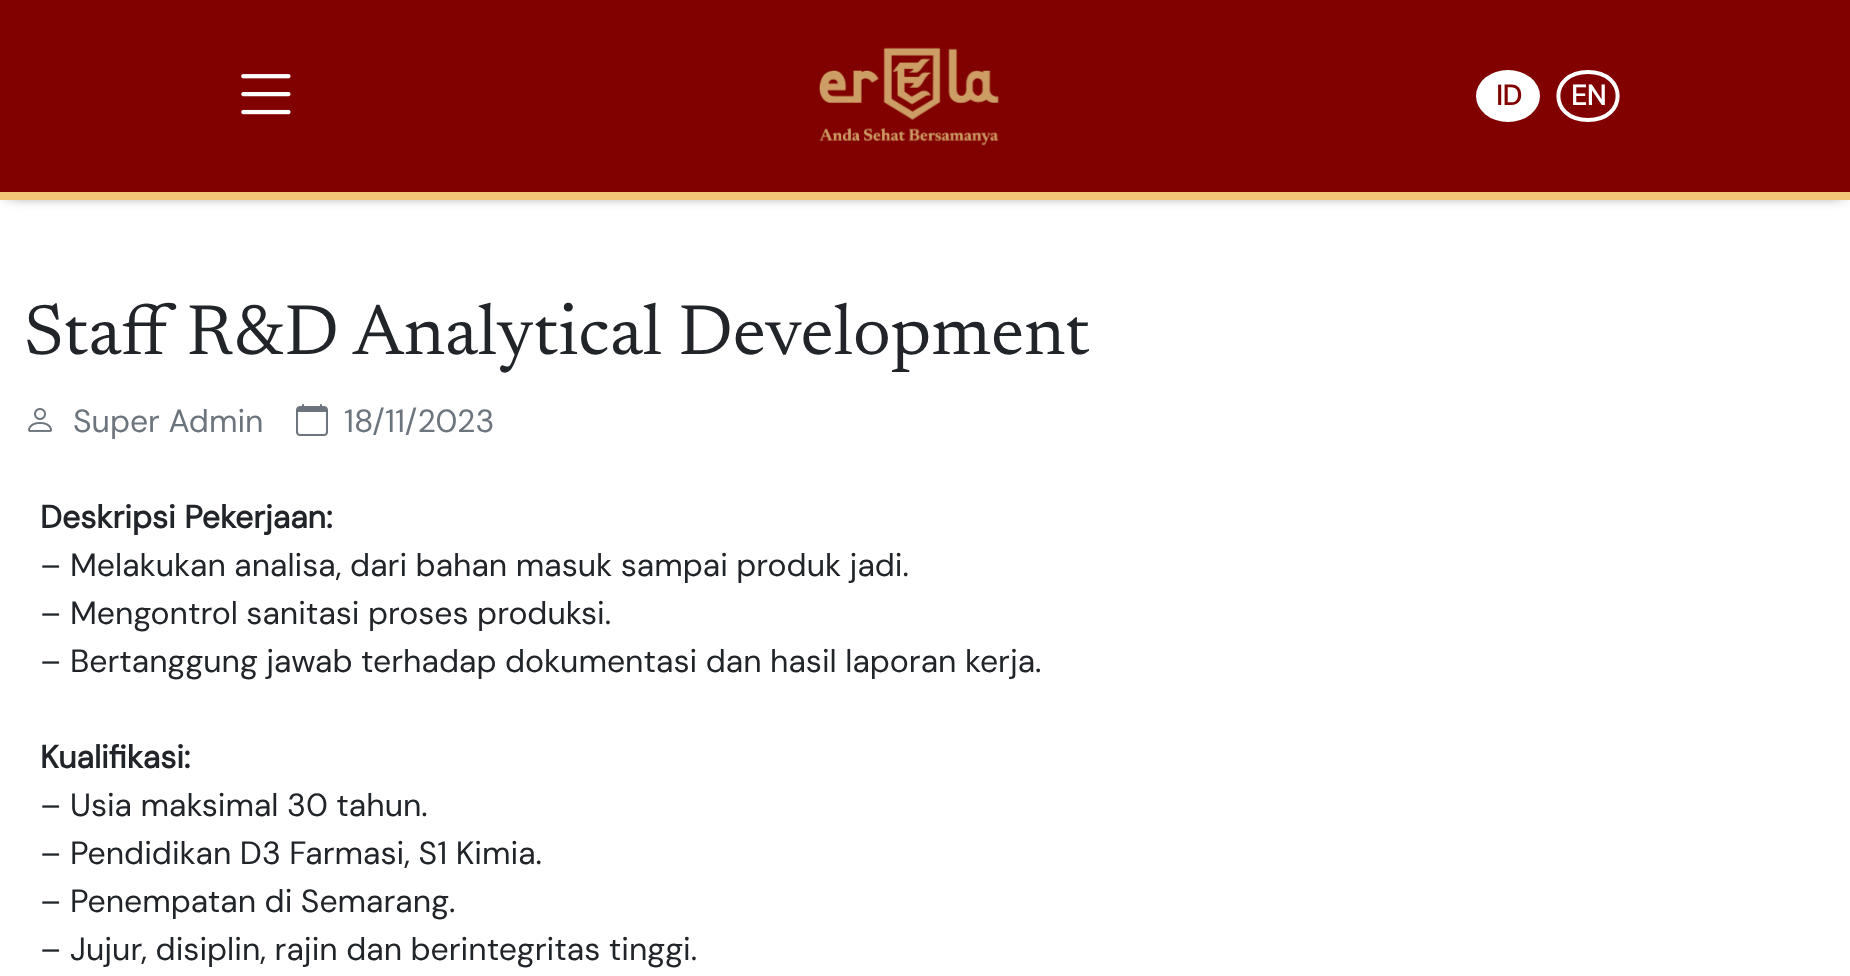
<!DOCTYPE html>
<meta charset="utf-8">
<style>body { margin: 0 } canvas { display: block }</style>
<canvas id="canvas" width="1850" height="976"></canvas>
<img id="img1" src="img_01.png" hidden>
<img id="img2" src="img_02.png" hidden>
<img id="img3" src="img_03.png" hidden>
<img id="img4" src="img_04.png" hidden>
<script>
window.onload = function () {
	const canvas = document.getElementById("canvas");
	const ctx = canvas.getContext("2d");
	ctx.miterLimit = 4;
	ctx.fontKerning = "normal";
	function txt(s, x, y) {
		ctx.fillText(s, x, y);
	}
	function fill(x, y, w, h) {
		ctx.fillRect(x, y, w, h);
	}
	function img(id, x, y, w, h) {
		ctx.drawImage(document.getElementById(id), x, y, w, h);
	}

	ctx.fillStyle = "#FFFFFF";
	fill(0, 0, 1850, 976);
	ctx.fillStyle = "#000000";
	ctx.filter = "blur(8px)";
	ctx.beginPath();
	ctx.rect(8, 8, 1834, 184);
	ctx.fill();
	ctx.filter = "none";
	ctx.fillStyle = "#810100";
	fill(0, 0, 1850, 192);
	ctx.fillStyle = "#F4C476";
	fill(0, 192, 1850, 8);
	img("img1", 241, 74, 50, 41);
	img("img2", 819, 47, 180, 99);
	ctx.fillStyle = "#FFFFFF";
	ctx.beginPath();
	ctx.ellipse(1508, 96, 32, 26, 0, 0, Math.PI * 2);
	ctx.fill();
	ctx.beginPath();
	ctx.moveTo(1588, 72);
	ctx.bezierCurveTo(1627.5, 72, 1627.5, 120, 1588, 120);
	ctx.bezierCurveTo(1548.5, 120, 1548.5, 72, 1588, 72);
	ctx.closePath();
	ctx.strokeStyle = "#FFFFFF";
	ctx.lineWidth = 4;
	ctx.stroke();
	img("img3", 28, 408, 24, 24);
	img("img4", 296, 404, 32, 32);
	ctx.font = "bold 28px DM Sans";
	ctx.fillStyle = "#810100";
	txt("ID", 1496, 105);
	ctx.fillStyle = "#FFFFFF";
	txt("EN", 1571, 105);
	ctx.font = "71.75px Newsreader";
	ctx.fillStyle = "#212529";
	txt("Staff R&D Analytical Development", 24, 354);
	ctx.font = "32px DM Sans";
	ctx.fillStyle = "#6C757D";
	txt("Super Admin", 73, 432);
	txt("18/11/2023", 344, 432);
	ctx.font = "bold 32px DM Sans";
	ctx.fillStyle = "#212529";
	txt("Deskripsi Pekerjaan:", 40, 528);
	ctx.font = "32px DM Sans";
	txt("– Melakukan analisa, dari bahan masuk sampai produk jadi.", 40, 576);
	txt("– Mengontrol sanitasi proses produksi.", 40, 624);
	txt("– Bertanggung jawab terhadap dokumentasi dan hasil laporan kerja.", 40, 672);
	ctx.font = "bold 32px DM Sans";
	txt("Kualifikasi:", 40, 768);
	ctx.font = "32px DM Sans";
	txt("– Usia maksimal 30 tahun.", 40, 816);
	txt("– Pendidikan D3 Farmasi, S1 Kimia.", 40, 864);
	txt("– Penempatan di Semarang.", 40, 912);
	txt("– Jujur, disiplin, rajin dan berintegritas tinggi.", 40, 960);
};
</script>
